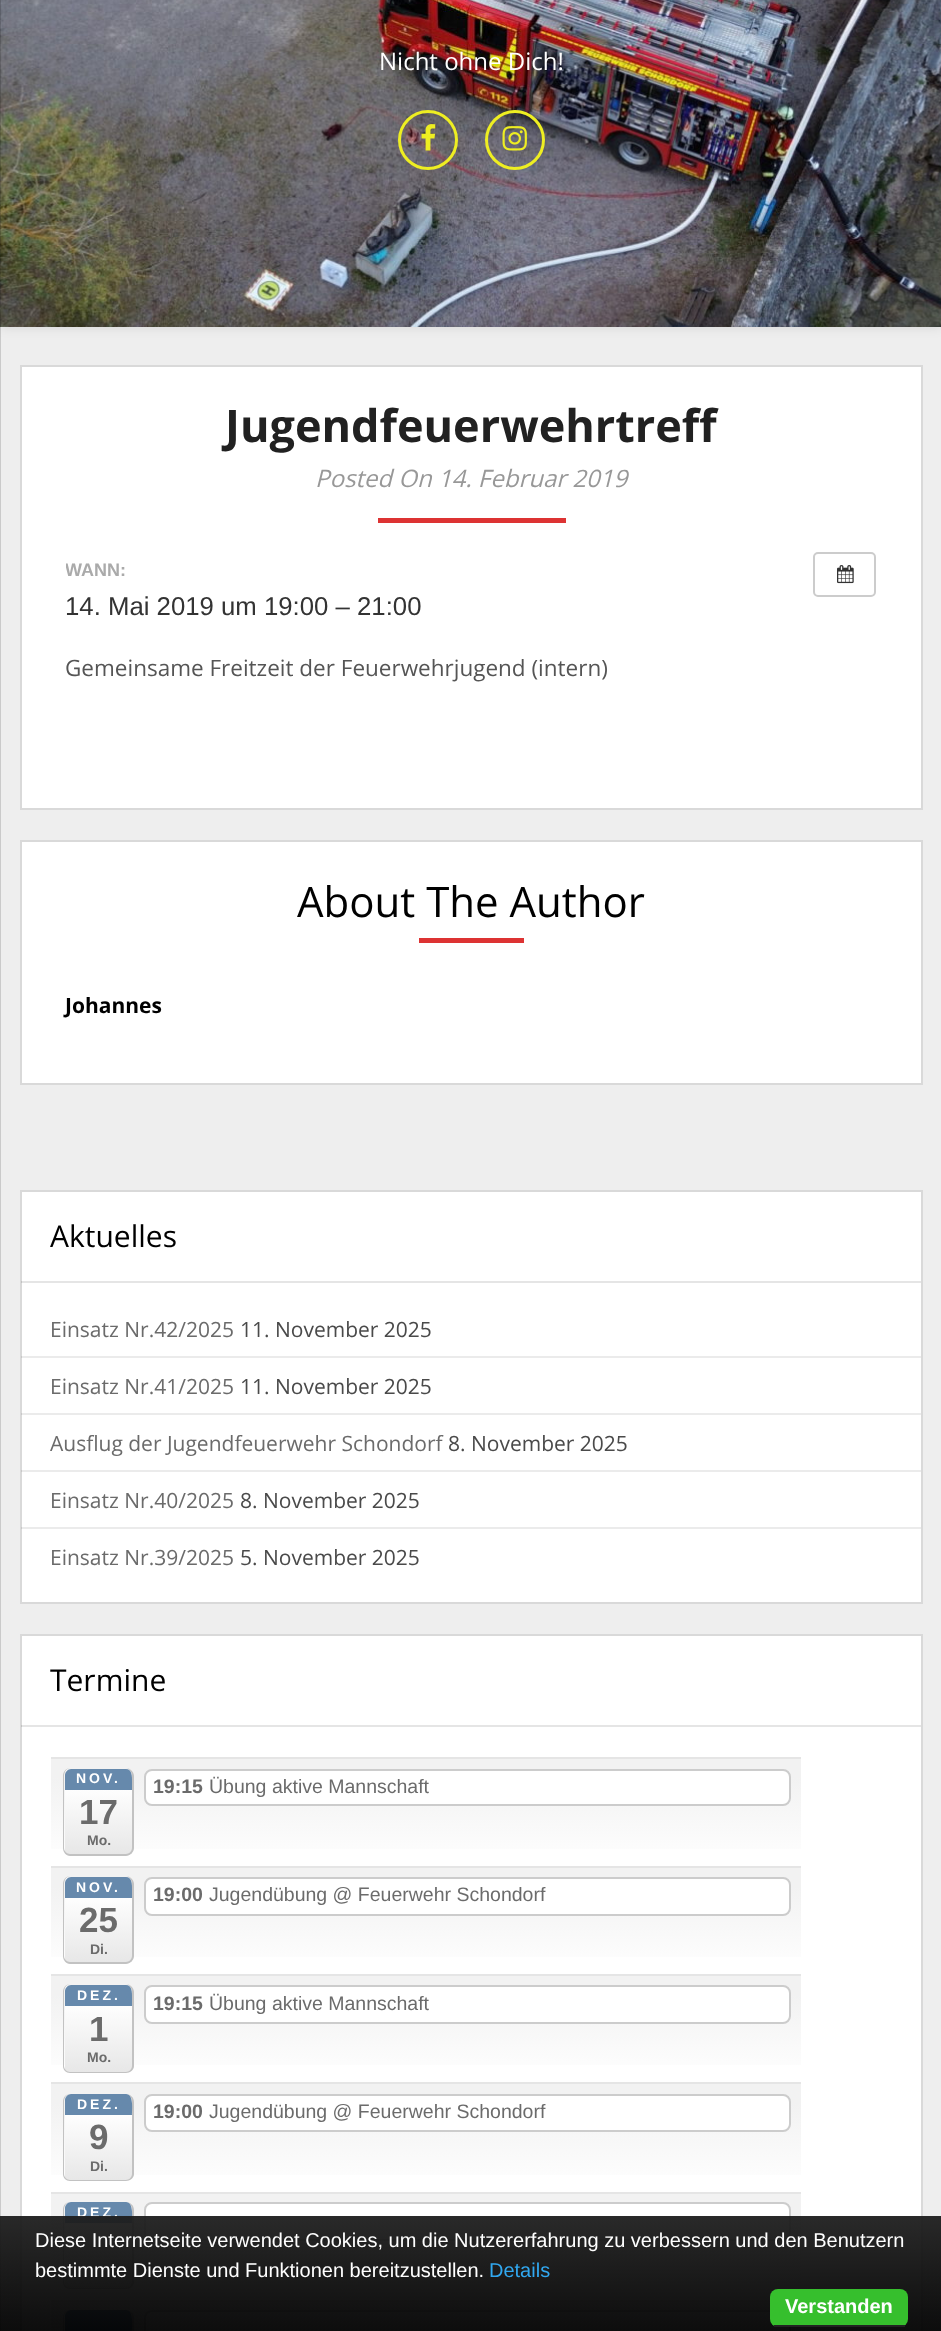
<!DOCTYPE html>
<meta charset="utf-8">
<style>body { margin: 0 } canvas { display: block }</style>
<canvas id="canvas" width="941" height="2331"></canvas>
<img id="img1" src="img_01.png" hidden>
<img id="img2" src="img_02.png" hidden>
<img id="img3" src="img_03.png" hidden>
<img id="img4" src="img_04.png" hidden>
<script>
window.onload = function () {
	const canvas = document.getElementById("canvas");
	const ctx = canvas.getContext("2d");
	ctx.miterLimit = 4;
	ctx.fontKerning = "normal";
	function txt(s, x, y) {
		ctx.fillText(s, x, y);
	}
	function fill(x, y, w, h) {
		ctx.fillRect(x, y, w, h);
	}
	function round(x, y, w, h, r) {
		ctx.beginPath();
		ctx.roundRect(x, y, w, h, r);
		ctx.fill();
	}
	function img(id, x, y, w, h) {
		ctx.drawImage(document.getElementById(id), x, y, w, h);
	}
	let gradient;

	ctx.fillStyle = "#EEEEEE";
	fill(0, 0, 941, 2331);
	ctx.fillStyle = "rgba(0, 0, 0, 0.1)";
	ctx.filter = "blur(6px)";
	ctx.beginPath();
	ctx.rect(0, -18, 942, 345);
	ctx.fill();
	ctx.filter = "none";
	img("img1", 0, 0, 941, 327);
	ctx.fillStyle = "rgba(0, 0, 0, 0.15)";
	fill(0, 0, 1, 2331);
	ctx.beginPath();
	ctx.arc(428, 140, 28.5, 0, Math.PI * 2);
	ctx.strokeStyle = "#EEEE22";
	ctx.lineWidth = 3;
	ctx.stroke();
	img("img2", 421, 124, 15, 27);
	ctx.beginPath();
	ctx.arc(515, 140, 28.5, 0, Math.PI * 2);
	ctx.stroke();
	img("img3", 502, 126, 25, 25);
	ctx.fillStyle = "#FFFFFF";
	ctx.beginPath();
	ctx.rect(21, 366, 901, 443);
	ctx.fill();
	ctx.strokeStyle = "#D9D9D9";
	ctx.lineWidth = 2;
	ctx.stroke();
	ctx.fillStyle = "#DD3333";
	fill(378, 518, 188, 5);
	ctx.beginPath();
	ctx.roundRect(814, 553, 61, 43, 4);
	ctx.strokeStyle = "#CCCCCC";
	ctx.stroke();
	img("img4", 837, 565, 17, 19);
	ctx.fillStyle = "#FFFFFF";
	ctx.beginPath();
	ctx.rect(21, 841, 901, 243);
	ctx.fill();
	ctx.strokeStyle = "#D9D9D9";
	ctx.stroke();
	ctx.fillStyle = "#DD3333";
	fill(419, 938, 105, 5);
	ctx.fillStyle = "#FFFFFF";
	ctx.beginPath();
	ctx.rect(21, 1191, 901, 412);
	ctx.fill();
	ctx.stroke();
	ctx.fillStyle = "rgba(0, 0, 0, 0.1)";
	fill(21, 1281, 900, 2);
	ctx.fillStyle = "rgba(0, 0, 0, 0.08)";
	fill(21, 1356, 900, 2);
	fill(21, 1413, 900, 2);
	fill(21, 1470, 900, 2);
	fill(21, 1527, 900, 2);
	ctx.fillStyle = "#FFFFFF";
	ctx.beginPath();
	ctx.rect(21, 1635, 901, 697);
	ctx.fill();
	ctx.stroke();
	ctx.fillStyle = "rgba(0, 0, 0, 0.1)";
	fill(21, 1725, 900, 2);
	gradient = ctx.createLinearGradient(426, 1758, 426, 1866);
	gradient.addColorStop(0, "#F2F2F2");
	gradient.addColorStop(0.18, "#F2F2F2");
	gradient.addColorStop(1, "#FFFFFF");
	ctx.fillStyle = gradient;
	fill(51, 1759, 750, 90);
	ctx.fillStyle = "#E5E5E5";
	fill(51, 1757, 750, 2);
	ctx.save();
	ctx.beginPath();
	ctx.roundRect(63, 1769, 71, 87, 8);
	ctx.clip();
	gradient = ctx.createLinearGradient(98, 1769, 98, 1854);
	gradient.addColorStop(0, "#FFFFFF");
	gradient.addColorStop(0.21, "#FFFFFF");
	gradient.addColorStop(1, "#E7E7E7");
	ctx.fillStyle = gradient;
	fill(65, 1769, 67, 85);
	ctx.restore();
	ctx.fillStyle = "#C2C2C2";
	ctx.beginPath();
	ctx.moveTo(70, 1768);
	ctx.lineTo(126, 1768);
	ctx.bezierCurveTo(130, 1768, 134, 1772, 134, 1776);
	ctx.lineTo(134, 1848);
	ctx.bezierCurveTo(134, 1852, 130, 1856, 126, 1856);
	ctx.lineTo(70, 1856);
	ctx.bezierCurveTo(66, 1856, 63, 1852, 63, 1848);
	ctx.lineTo(63, 1776);
	ctx.bezierCurveTo(63, 1772, 66, 1768, 70, 1768);
	ctx.closePath();
	ctx.moveTo(70, 1768);
	ctx.lineTo(126, 1768);
	ctx.bezierCurveTo(129, 1768, 132, 1772, 132, 1776);
	ctx.lineTo(132, 1848);
	ctx.bezierCurveTo(132, 1851, 129, 1854, 126, 1854);
	ctx.lineTo(70, 1854);
	ctx.bezierCurveTo(67, 1854, 64, 1851, 64, 1848);
	ctx.lineTo(64, 1776);
	ctx.bezierCurveTo(64, 1772, 67, 1768, 70, 1768);
	ctx.closePath();
	ctx.fill("evenodd");
	ctx.fillStyle = "#6689AC";
	ctx.beginPath();
	ctx.moveTo(71, 1769);
	ctx.bezierCurveTo(68, 1769, 65, 1772, 65, 1775);
	ctx.lineTo(65, 1790);
	ctx.lineTo(132, 1790);
	ctx.lineTo(132, 1781);
	ctx.bezierCurveTo(132, 1776, 132, 1769, 126, 1769);
	ctx.closePath();
	ctx.fill();
	ctx.fillStyle = "#FFFFFF";
	ctx.beginPath();
	ctx.roundRect(145, 1770, 645, 35, 7);
	ctx.fill();
	ctx.strokeStyle = "#CCCCCC";
	ctx.stroke();
	gradient = ctx.createLinearGradient(426, 1868, 426, 1974);
	gradient.addColorStop(0, "#F2F2F2");
	gradient.addColorStop(0.18, "#F2F2F2");
	gradient.addColorStop(1, "#FFFFFF");
	ctx.fillStyle = gradient;
	fill(51, 1868, 750, 89);
	ctx.fillStyle = "#E5E5E5";
	fill(51, 1866, 750, 2);
	ctx.save();
	ctx.beginPath();
	ctx.roundRect(63, 1877, 71, 87, 8);
	ctx.clip();
	gradient = ctx.createLinearGradient(98, 1877, 98, 1962);
	gradient.addColorStop(0, "#FFFFFF");
	gradient.addColorStop(0.21, "#FFFFFF");
	gradient.addColorStop(1, "#E7E7E7");
	ctx.fillStyle = gradient;
	fill(65, 1877, 67, 85);
	ctx.restore();
	ctx.fillStyle = "#C2C2C2";
	ctx.beginPath();
	ctx.moveTo(70, 1876);
	ctx.lineTo(126, 1876);
	ctx.bezierCurveTo(130, 1876, 134, 1880, 134, 1884);
	ctx.lineTo(134, 1956);
	ctx.bezierCurveTo(134, 1960, 130, 1964, 126, 1964);
	ctx.lineTo(70, 1964);
	ctx.bezierCurveTo(66, 1964, 63, 1960, 63, 1956);
	ctx.lineTo(63, 1884);
	ctx.bezierCurveTo(63, 1880, 66, 1876, 70, 1876);
	ctx.closePath();
	ctx.moveTo(70, 1876);
	ctx.lineTo(126, 1876);
	ctx.bezierCurveTo(129, 1876, 132, 1880, 132, 1884);
	ctx.lineTo(132, 1956);
	ctx.bezierCurveTo(132, 1959, 129, 1962, 126, 1962);
	ctx.lineTo(70, 1962);
	ctx.bezierCurveTo(67, 1962, 64, 1959, 64, 1956);
	ctx.lineTo(64, 1884);
	ctx.bezierCurveTo(64, 1880, 67, 1876, 70, 1876);
	ctx.closePath();
	ctx.fill("evenodd");
	ctx.fillStyle = "#6689AC";
	ctx.beginPath();
	ctx.moveTo(71, 1877);
	ctx.bezierCurveTo(68, 1877, 65, 1880, 65, 1883);
	ctx.lineTo(65, 1898);
	ctx.lineTo(132, 1898);
	ctx.lineTo(132, 1889);
	ctx.bezierCurveTo(132, 1884, 132, 1877, 126, 1877);
	ctx.closePath();
	ctx.fill();
	ctx.fillStyle = "#FFFFFF";
	ctx.beginPath();
	ctx.roundRect(145, 1878, 645, 37, 7);
	ctx.fill();
	ctx.stroke();
	gradient = ctx.createLinearGradient(426, 1976, 426, 2082);
	gradient.addColorStop(0, "#F2F2F2");
	gradient.addColorStop(0.18, "#F2F2F2");
	gradient.addColorStop(1, "#FFFFFF");
	ctx.fillStyle = gradient;
	fill(51, 1976, 750, 89);
	ctx.fillStyle = "#E5E5E5";
	fill(51, 1974, 750, 2);
	ctx.save();
	ctx.beginPath();
	ctx.roundRect(63, 1985, 71, 88, 8);
	ctx.clip();
	gradient = ctx.createLinearGradient(98, 1985, 98, 2072);
	gradient.addColorStop(0, "#FFFFFF");
	gradient.addColorStop(0.2, "#FFFFFF");
	gradient.addColorStop(1, "#E7E7E7");
	ctx.fillStyle = gradient;
	fill(65, 1985, 67, 87);
	ctx.restore();
	ctx.fillStyle = "#C2C2C2";
	ctx.beginPath();
	ctx.moveTo(70, 1984);
	ctx.lineTo(126, 1984);
	ctx.bezierCurveTo(130, 1984, 134, 1988, 134, 1992);
	ctx.lineTo(134, 2066);
	ctx.bezierCurveTo(134, 2070, 130, 2073, 126, 2073);
	ctx.lineTo(70, 2073);
	ctx.bezierCurveTo(66, 2073, 63, 2070, 63, 2066);
	ctx.lineTo(63, 1992);
	ctx.bezierCurveTo(63, 1988, 66, 1984, 70, 1984);
	ctx.closePath();
	ctx.moveTo(70, 1984);
	ctx.lineTo(126, 1984);
	ctx.bezierCurveTo(129, 1984, 132, 1988, 132, 1992);
	ctx.lineTo(132, 2066);
	ctx.bezierCurveTo(132, 2069, 129, 2072, 126, 2072);
	ctx.lineTo(70, 2072);
	ctx.bezierCurveTo(67, 2072, 64, 2069, 64, 2066);
	ctx.lineTo(64, 1992);
	ctx.bezierCurveTo(64, 1988, 67, 1984, 70, 1984);
	ctx.closePath();
	ctx.fill("evenodd");
	ctx.fillStyle = "#6689AC";
	ctx.beginPath();
	ctx.moveTo(71, 1985);
	ctx.bezierCurveTo(68, 1985, 65, 1988, 65, 1991);
	ctx.lineTo(65, 2006);
	ctx.lineTo(132, 2006);
	ctx.lineTo(132, 1997);
	ctx.bezierCurveTo(132, 1992, 132, 1985, 126, 1985);
	ctx.closePath();
	ctx.fill();
	ctx.fillStyle = "#FFFFFF";
	ctx.beginPath();
	ctx.roundRect(145, 1986, 645, 37, 7);
	ctx.fill();
	ctx.stroke();
	gradient = ctx.createLinearGradient(426, 2084, 426, 2192);
	gradient.addColorStop(0, "#F2F2F2");
	gradient.addColorStop(0.18, "#F2F2F2");
	gradient.addColorStop(1, "#FFFFFF");
	ctx.fillStyle = gradient;
	fill(51, 2084, 750, 91);
	ctx.fillStyle = "#E5E5E5";
	fill(51, 2082, 750, 2);
	ctx.save();
	ctx.beginPath();
	ctx.roundRect(63, 2094, 71, 87, 8);
	ctx.clip();
	gradient = ctx.createLinearGradient(98, 2094, 98, 2180);
	gradient.addColorStop(0, "#FFFFFF");
	gradient.addColorStop(0.21, "#FFFFFF");
	gradient.addColorStop(1, "#E7E7E7");
	ctx.fillStyle = gradient;
	fill(65, 2094, 67, 86);
	ctx.restore();
	ctx.fillStyle = "#C2C2C2";
	ctx.beginPath();
	ctx.moveTo(70, 2094);
	ctx.lineTo(126, 2094);
	ctx.bezierCurveTo(130, 2094, 134, 2097, 134, 2102);
	ctx.lineTo(134, 2174);
	ctx.bezierCurveTo(134, 2178, 130, 2181, 126, 2181);
	ctx.lineTo(70, 2181);
	ctx.bezierCurveTo(66, 2181, 63, 2178, 63, 2174);
	ctx.lineTo(63, 2102);
	ctx.bezierCurveTo(63, 2097, 66, 2094, 70, 2094);
	ctx.closePath();
	ctx.moveTo(70, 2094);
	ctx.lineTo(126, 2094);
	ctx.bezierCurveTo(129, 2094, 132, 2097, 132, 2102);
	ctx.lineTo(132, 2174);
	ctx.bezierCurveTo(132, 2177, 129, 2180, 126, 2180);
	ctx.lineTo(70, 2180);
	ctx.bezierCurveTo(67, 2180, 64, 2177, 64, 2174);
	ctx.lineTo(64, 2102);
	ctx.bezierCurveTo(64, 2097, 67, 2094, 70, 2094);
	ctx.closePath();
	ctx.fill("evenodd");
	ctx.fillStyle = "#6689AC";
	ctx.beginPath();
	ctx.moveTo(71, 2094);
	ctx.bezierCurveTo(68, 2094, 65, 2097, 65, 2100);
	ctx.lineTo(65, 2115);
	ctx.lineTo(132, 2115);
	ctx.bezierCurveTo(132, 2110, 134, 2094, 126, 2094);
	ctx.closePath();
	ctx.fill();
	ctx.fillStyle = "#FFFFFF";
	ctx.beginPath();
	ctx.roundRect(145, 2095, 645, 36, 7);
	ctx.fill();
	ctx.stroke();
	gradient = ctx.createLinearGradient(426, 2193, 426, 2300);
	gradient.addColorStop(0, "#F2F2F2");
	gradient.addColorStop(0.18, "#F2F2F2");
	gradient.addColorStop(1, "#FFFFFF");
	ctx.fillStyle = gradient;
	fill(51, 2194, 750, 89);
	ctx.fillStyle = "#E5E5E5";
	fill(51, 2192, 750, 2);
	ctx.save();
	ctx.beginPath();
	ctx.roundRect(63, 2202, 71, 87, 8);
	ctx.clip();
	gradient = ctx.createLinearGradient(98, 2202, 98, 2288);
	gradient.addColorStop(0, "#FFFFFF");
	gradient.addColorStop(0.21, "#FFFFFF");
	gradient.addColorStop(1, "#E7E7E7");
	ctx.fillStyle = gradient;
	fill(65, 2202, 67, 86);
	ctx.restore();
	ctx.fillStyle = "#C2C2C2";
	ctx.beginPath();
	ctx.moveTo(70, 2202);
	ctx.lineTo(126, 2202);
	ctx.bezierCurveTo(130, 2202, 134, 2205, 134, 2210);
	ctx.lineTo(134, 2282);
	ctx.bezierCurveTo(134, 2286, 130, 2289, 126, 2289);
	ctx.lineTo(70, 2289);
	ctx.bezierCurveTo(66, 2289, 63, 2286, 63, 2282);
	ctx.lineTo(63, 2210);
	ctx.bezierCurveTo(63, 2205, 66, 2202, 70, 2202);
	ctx.closePath();
	ctx.moveTo(70, 2202);
	ctx.lineTo(126, 2202);
	ctx.bezierCurveTo(129, 2202, 132, 2205, 132, 2210);
	ctx.lineTo(132, 2282);
	ctx.bezierCurveTo(132, 2285, 129, 2288, 126, 2288);
	ctx.lineTo(70, 2288);
	ctx.bezierCurveTo(67, 2288, 64, 2285, 64, 2282);
	ctx.lineTo(64, 2210);
	ctx.bezierCurveTo(64, 2205, 67, 2202, 70, 2202);
	ctx.closePath();
	ctx.fill("evenodd");
	ctx.fillStyle = "#6689AC";
	ctx.beginPath();
	ctx.moveTo(71, 2202);
	ctx.bezierCurveTo(68, 2202, 65, 2205, 65, 2208);
	ctx.lineTo(65, 2223);
	ctx.lineTo(132, 2223);
	ctx.bezierCurveTo(132, 2218, 134, 2202, 126, 2202);
	ctx.closePath();
	ctx.fill();
	ctx.fillStyle = "#FFFFFF";
	ctx.beginPath();
	ctx.roundRect(145, 2203, 645, 37, 7);
	ctx.fill();
	ctx.stroke();
	gradient = ctx.createLinearGradient(426, 2301, 426, 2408);
	gradient.addColorStop(0, "#F2F2F2");
	gradient.addColorStop(0.18, "#F2F2F2");
	gradient.addColorStop(1, "#FFFFFF");
	ctx.fillStyle = gradient;
	fill(51, 2302, 750, 29);
	ctx.fillStyle = "#E5E5E5";
	fill(51, 2300, 719, 2);
	ctx.save();
	ctx.beginPath();
	ctx.roundRect(63, 2310, 71, 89, 8);
	ctx.clip();
	gradient = ctx.createLinearGradient(98, 2310, 98, 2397);
	gradient.addColorStop(0, "#FFFFFF");
	gradient.addColorStop(0.2, "#FFFFFF");
	gradient.addColorStop(1, "#E7E7E7");
	ctx.fillStyle = gradient;
	fill(65, 2310, 67, 9);
	ctx.restore();
	ctx.fillStyle = "#C2C2C2";
	ctx.beginPath();
	ctx.moveTo(70, 2310);
	ctx.lineTo(126, 2310);
	ctx.bezierCurveTo(130, 2310, 134, 2313, 134, 2318);
	ctx.lineTo(134, 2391);
	ctx.bezierCurveTo(134, 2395, 130, 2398, 126, 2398);
	ctx.lineTo(70, 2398);
	ctx.bezierCurveTo(66, 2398, 63, 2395, 63, 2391);
	ctx.lineTo(63, 2318);
	ctx.bezierCurveTo(63, 2313, 66, 2310, 70, 2310);
	ctx.closePath();
	ctx.moveTo(70, 2310);
	ctx.lineTo(126, 2310);
	ctx.bezierCurveTo(129, 2310, 132, 2313, 132, 2318);
	ctx.lineTo(132, 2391);
	ctx.bezierCurveTo(132, 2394, 129, 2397, 126, 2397);
	ctx.lineTo(70, 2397);
	ctx.bezierCurveTo(67, 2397, 64, 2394, 64, 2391);
	ctx.lineTo(64, 2318);
	ctx.bezierCurveTo(64, 2313, 67, 2310, 70, 2310);
	ctx.closePath();
	ctx.fill("evenodd");
	ctx.fillStyle = "#6689AC";
	ctx.beginPath();
	ctx.moveTo(71, 2310);
	ctx.bezierCurveTo(68, 2310, 65, 2313, 65, 2316);
	ctx.lineTo(65, 2331);
	ctx.lineTo(132, 2331);
	ctx.bezierCurveTo(132, 2326, 134, 2310, 126, 2310);
	ctx.closePath();
	ctx.fill();
	ctx.fillStyle = "#FFFFFF";
	ctx.beginPath();
	ctx.roundRect(145, 2311, 645, 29, 7);
	ctx.fill();
	ctx.stroke();
	ctx.font = "24px Open Sans";
	txt("Nicht ohne Dich!", 379, 70);
	ctx.font = "bold 45px Open Sans";
	ctx.fillStyle = "#212121";
	txt("Jugendfeuerwehrtreff", 225, 442);
	ctx.font = "italic 24px Open Sans";
	ctx.fillStyle = "#989898";
	txt("Posted On 14. Februar 2019", 315, 487);
	ctx.save();
	ctx.beginPath();
	ctx.rect(66, 552, 732, 78);
	ctx.clip();
	ctx.font = "bold 18px Liberation Sans";
	ctx.fillStyle = "#AAAAAA";
	txt("WANN:", 65, 576);
	ctx.restore();
	ctx.font = "25.75px Liberation Sans";
	ctx.fillStyle = "#333333";
	txt("14. Mai 2019 um 19:00 – 21:00", 65, 615);
	ctx.font = "22.5px Open Sans";
	ctx.fillStyle = "#555555";
	txt("Gemeinsame Freitzeit der Feuerwehrjugend (intern)", 65, 676);
	ctx.font = "42px Open Sans";
	ctx.fillStyle = "#000000";
	txt("About The Author", 297, 917);
	ctx.font = "bold 21px Open Sans";
	txt("Johannes", 65, 1013);
	ctx.font = "30px Open Sans";
	txt("Aktuelles", 50, 1247);
	ctx.font = "21px Open Sans";
	ctx.fillStyle = "#6B6B6B";
	txt("Einsatz Nr.42/2025", 50, 1337);
	ctx.fillStyle = "#4A4A4A";
	txt("11. November 2025", 240, 1337);
	ctx.fillStyle = "#6B6B6B";
	txt("Einsatz Nr.41/2025", 50, 1394);
	ctx.fillStyle = "#4A4A4A";
	txt("11. November 2025", 240, 1394);
	ctx.fillStyle = "#6B6B6B";
	txt("Ausflug der Jugendfeuerwehr Schondorf", 50, 1451);
	ctx.fillStyle = "#4A4A4A";
	txt("8. November 2025", 448, 1451);
	ctx.fillStyle = "#6B6B6B";
	txt("Einsatz Nr.40/2025", 50, 1508);
	ctx.fillStyle = "#4A4A4A";
	txt("8. November 2025", 240, 1508);
	ctx.fillStyle = "#6B6B6B";
	txt("Einsatz Nr.39/2025", 50, 1565);
	ctx.fillStyle = "#4A4A4A";
	txt("5. November 2025", 240, 1565);
	ctx.font = "30px Open Sans";
	ctx.fillStyle = "#000000";
	txt("Termine", 50, 1691);
	ctx.letterSpacing = "3px";
	ctx.font = "bold 14px Liberation Sans";
	ctx.fillStyle = "#FFFFFF";
	txt("NOV.", 76, 1783);
	ctx.letterSpacing = "0px";
	ctx.font = "bold 35px Liberation Sans";
	ctx.fillStyle = "#6B6B6B";
	txt("17", 79, 1824);
	ctx.font = "bold 14px Liberation Sans";
	txt("Mo.", 87, 1845);
	ctx.font = "bold 19.5px Liberation Sans";
	txt("19:15", 153, 1793);
	ctx.font = "19.5px Liberation Sans";
	txt("Übung aktive Mannschaft", 209, 1793);
	ctx.letterSpacing = "3px";
	ctx.font = "bold 14px Liberation Sans";
	ctx.fillStyle = "#FFFFFF";
	txt("NOV.", 76, 1892);
	ctx.letterSpacing = "0px";
	ctx.font = "bold 35px Liberation Sans";
	ctx.fillStyle = "#6B6B6B";
	txt("25", 79, 1932);
	ctx.font = "bold 14px Liberation Sans";
	txt("Di.", 90, 1954);
	ctx.font = "bold 19.5px Liberation Sans";
	txt("19:00", 153, 1901);
	ctx.font = "19.5px Liberation Sans";
	txt("Jugendübung @ Feuerwehr Schondorf", 209, 1901);
	ctx.letterSpacing = "3px";
	ctx.font = "bold 14px Liberation Sans";
	ctx.fillStyle = "#FFFFFF";
	txt("DEZ.", 77, 2000);
	ctx.letterSpacing = "0px";
	ctx.font = "bold 35px Liberation Sans";
	ctx.fillStyle = "#6B6B6B";
	txt("1", 89, 2041);
	ctx.font = "bold 14px Liberation Sans";
	txt("Mo.", 87, 2062);
	ctx.font = "bold 19.5px Liberation Sans";
	txt("19:15", 153, 2010);
	ctx.font = "19.5px Liberation Sans";
	txt("Übung aktive Mannschaft", 209, 2010);
	ctx.letterSpacing = "3px";
	ctx.font = "bold 14px Liberation Sans";
	ctx.fillStyle = "#FFFFFF";
	txt("DEZ.", 77, 2109);
	ctx.letterSpacing = "0px";
	ctx.font = "bold 35px Liberation Sans";
	ctx.fillStyle = "#6B6B6B";
	txt("9", 89, 2149);
	ctx.font = "bold 14px Liberation Sans";
	txt("Di.", 90, 2171);
	ctx.font = "bold 19.5px Liberation Sans";
	txt("19:00", 153, 2118);
	ctx.font = "19.5px Liberation Sans";
	txt("Jugendübung @ Feuerwehr Schondorf", 209, 2118);
	ctx.letterSpacing = "3px";
	ctx.font = "bold 14px Liberation Sans";
	ctx.fillStyle = "#FFFFFF";
	txt("DEZ.", 77, 2217);
	gradient = ctx.createLinearGradient(471, 2216, 471, 2331);
	gradient.addColorStop(0, "rgba(30, 30, 30, 0.95)");
	gradient.addColorStop(1, "rgba(0, 0, 0, 0.95)");
	ctx.fillStyle = gradient;
	fill(0, 2216, 941, 115);
	ctx.letterSpacing = "0px";
	ctx.font = "20px Liberation Sans";
	ctx.fillStyle = "#FFFFFF";
	txt("Diese Internetseite verwendet Cookies, um die Nutzererfahrung zu verbessern und den Benutzern", 35, 2247);
	txt("bestimmte Dienste und Funktionen bereitzustellen.", 35, 2277);
	ctx.fillStyle = "#31A8F0";
	txt("Details", 489, 2277);
	ctx.fillStyle = "#36BF2D";
	round(770, 2289, 138, 38, 8);
	ctx.fillStyle = "#222222";
	fill(774, 2325, 131, 2);
	ctx.font = "bold 20px Liberation Sans";
	ctx.fillStyle = "#FFFFFF";
	txt("Verstanden", 785, 2313);
};
</script>
